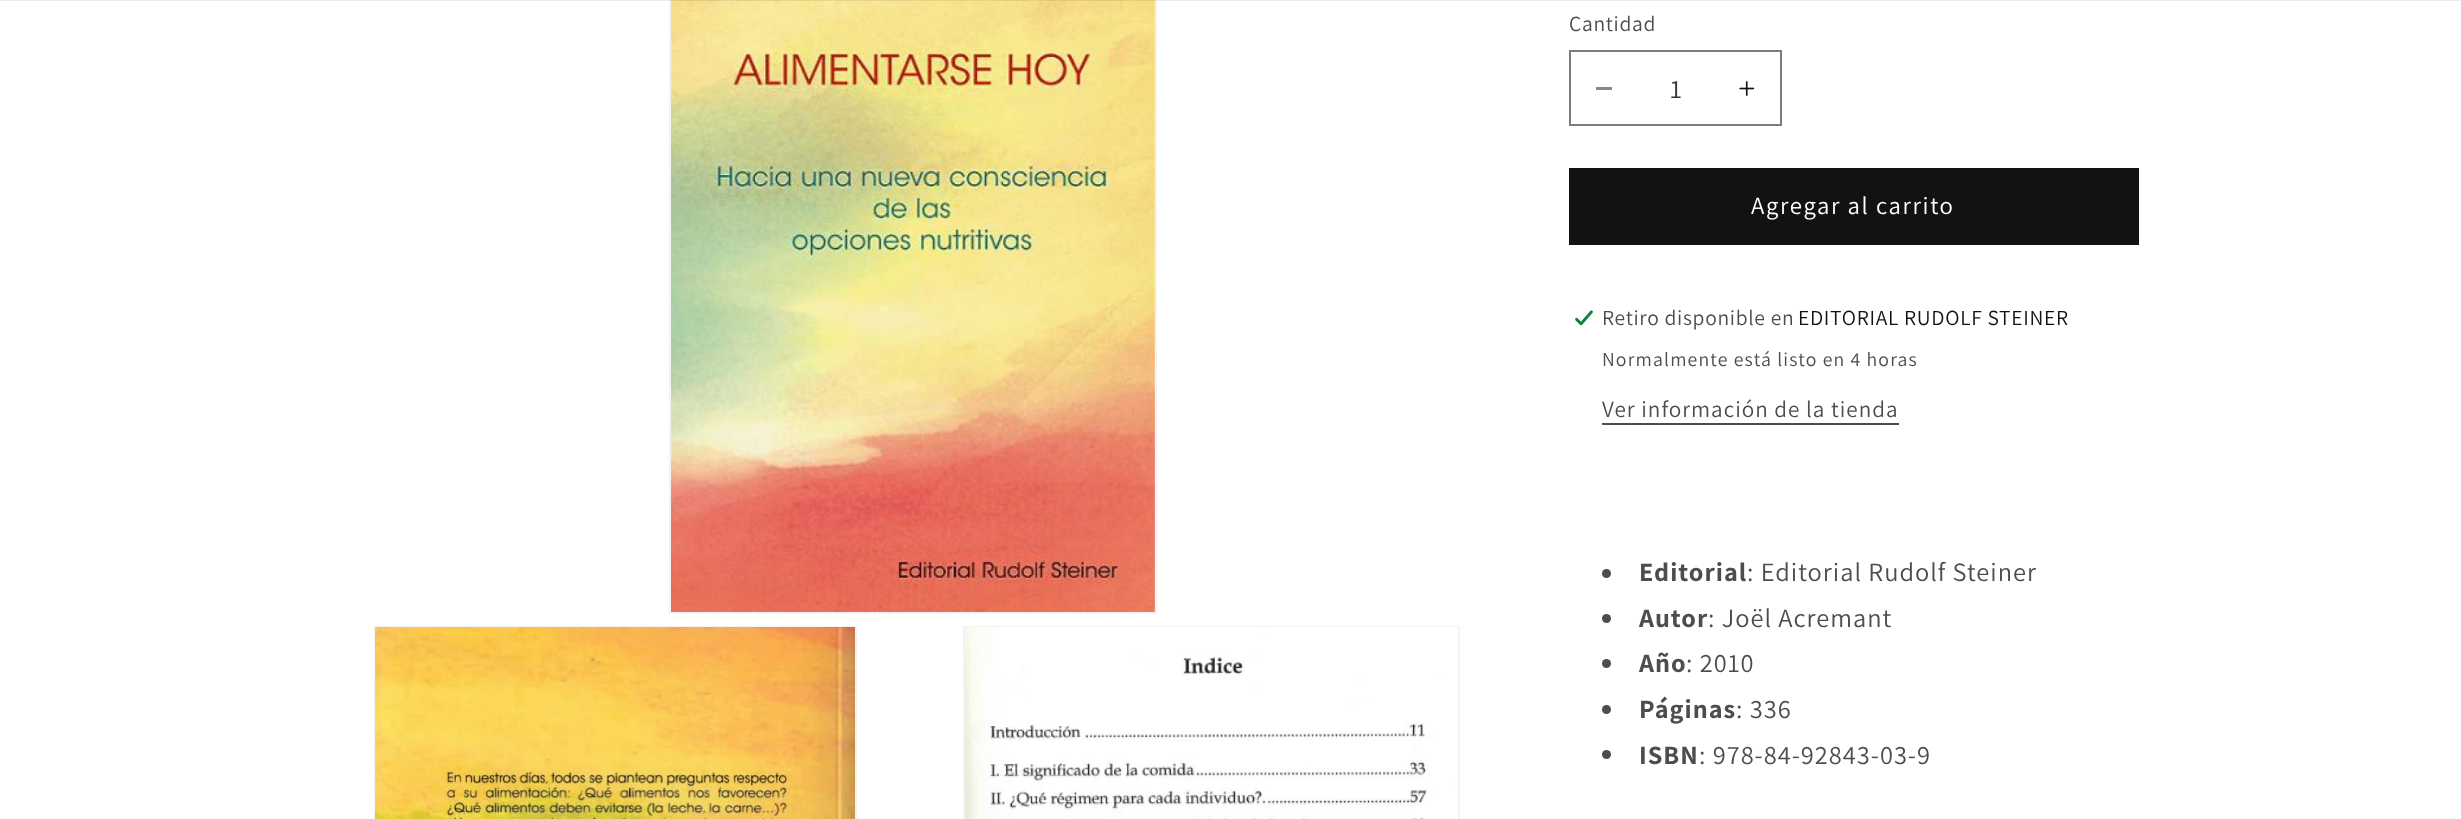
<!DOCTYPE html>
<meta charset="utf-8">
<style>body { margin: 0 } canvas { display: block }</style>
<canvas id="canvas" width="2461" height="819"></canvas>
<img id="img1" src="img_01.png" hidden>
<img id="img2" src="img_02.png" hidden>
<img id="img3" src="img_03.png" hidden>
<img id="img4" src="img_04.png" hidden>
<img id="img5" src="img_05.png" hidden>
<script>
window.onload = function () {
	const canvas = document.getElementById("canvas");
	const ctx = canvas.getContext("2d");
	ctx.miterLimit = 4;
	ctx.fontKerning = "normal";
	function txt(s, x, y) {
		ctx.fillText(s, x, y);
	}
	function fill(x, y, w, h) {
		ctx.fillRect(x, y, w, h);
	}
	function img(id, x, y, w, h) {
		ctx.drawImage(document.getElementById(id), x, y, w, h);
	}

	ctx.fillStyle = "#FFFFFF";
	fill(0, 0, 2461, 819);
	ctx.strokeStyle = "#F3F3F3";
	ctx.lineWidth = 2;
	ctx.strokeRect(670, -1, 486, 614);
	img("img1", 671, 0, 484, 612);
	ctx.fillStyle = "rgba(18, 18, 18, 0.08)";
	fill(0, 0, 2461, 1);
	ctx.strokeRect(375, 627, 481, 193);
	img("img2", 375, 627, 480, 192);
	ctx.strokeRect(964, 627, 495, 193);
	img("img3", 965, 627, 493, 192);
	ctx.fillStyle = "#898989";
	fill(1596, 87, 16, 3);
	img("img4", 1739, 81, 16, 15);
	ctx.strokeStyle = "#7D7D7D";
	ctx.strokeRect(1570, 51, 211, 74);
	ctx.fillStyle = "#121212";
	fill(1569, 168, 570, 77);
	img("img5", 1575, 310, 18, 16);
	ctx.fillStyle = "#4D4D4D";
	fill(1602, 423, 297, 2);
	ctx.beginPath();
	ctx.arc(1606.5, 573.5, 4.5, 0, Math.PI * 2);
	ctx.fill();
	ctx.beginPath();
	ctx.arc(1606.5, 618.5, 4.5, 0, Math.PI * 2);
	ctx.fill();
	ctx.beginPath();
	ctx.arc(1606.5, 663.5, 4.5, 0, Math.PI * 2);
	ctx.fill();
	ctx.beginPath();
	ctx.arc(1606.5, 709.5, 4.5, 0, Math.PI * 2);
	ctx.fill();
	ctx.beginPath();
	ctx.arc(1606.5, 754.5, 4.5, 0, Math.PI * 2);
	ctx.fill();
	ctx.letterSpacing = "0.7px";
	ctx.font = "21.5px Assistant";
	txt("Cantidad", 1569, 31);
	ctx.letterSpacing = "0px";
	ctx.font = "26.4px Assistant";
	ctx.fillStyle = "#363636";
	txt("1", 1670, 98);
	ctx.letterSpacing = "1.6px";
	ctx.font = "24.75px Assistant";
	ctx.fillStyle = "#FFFFFF";
	txt("Agregar al carrito", 1751, 214);
	ctx.letterSpacing = "0.7px";
	ctx.font = "21.5px Assistant";
	ctx.fillStyle = "#4D4D4D";
	txt("Retiro disponible en", 1602, 325);
	ctx.fillStyle = "#121212";
	txt("EDITORIAL RUDOLF STEINER", 1798, 325);
	ctx.letterSpacing = "1.15px";
	ctx.font = "19.75px Assistant";
	ctx.fillStyle = "#4D4D4D";
	txt("Normalmente está listo en 4 horas", 1602, 366);
	ctx.letterSpacing = "1px";
	ctx.font = "23.1px Assistant";
	txt("Ver información de la tienda", 1602, 417);
	ctx.font = "bold 26.4px Assistant";
	txt("Editorial", 1639, 581);
	ctx.font = "26.4px Assistant";
	txt(": Editorial Rudolf Steiner", 1747, 581);
	ctx.font = "bold 26.4px Assistant";
	txt("Autor", 1639, 627);
	ctx.font = "26.4px Assistant";
	txt(": Joël Acremant", 1708, 627);
	ctx.font = "bold 26.4px Assistant";
	txt("Año", 1639, 672);
	ctx.font = "26.4px Assistant";
	txt(": 2010", 1686, 672);
	ctx.font = "bold 26.4px Assistant";
	txt("Páginas", 1639, 718);
	ctx.font = "26.4px Assistant";
	txt(": 336", 1736, 718);
	ctx.font = "bold 26.4px Assistant";
	txt("ISBN", 1639, 764);
	ctx.font = "26.4px Assistant";
	txt(": 978-84-92843-03-9", 1699, 764);
};
</script>
